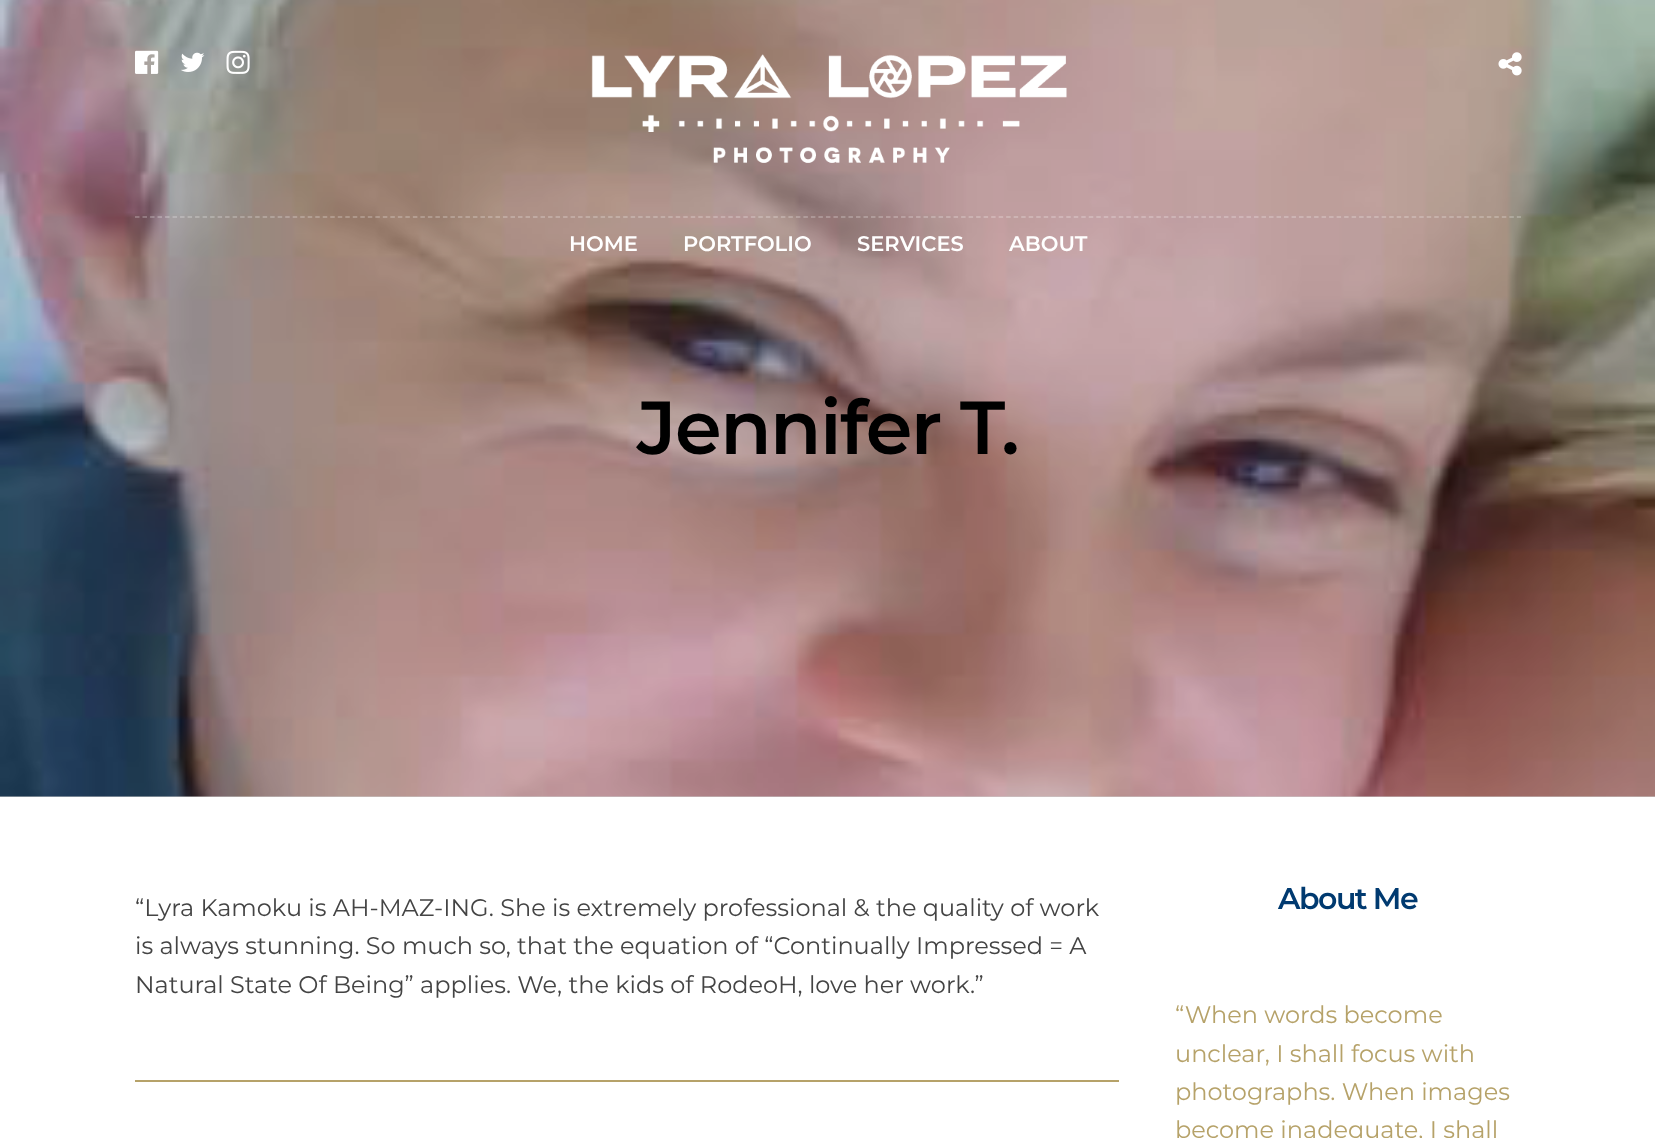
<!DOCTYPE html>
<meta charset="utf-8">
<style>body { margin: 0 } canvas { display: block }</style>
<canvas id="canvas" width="1655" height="1138"></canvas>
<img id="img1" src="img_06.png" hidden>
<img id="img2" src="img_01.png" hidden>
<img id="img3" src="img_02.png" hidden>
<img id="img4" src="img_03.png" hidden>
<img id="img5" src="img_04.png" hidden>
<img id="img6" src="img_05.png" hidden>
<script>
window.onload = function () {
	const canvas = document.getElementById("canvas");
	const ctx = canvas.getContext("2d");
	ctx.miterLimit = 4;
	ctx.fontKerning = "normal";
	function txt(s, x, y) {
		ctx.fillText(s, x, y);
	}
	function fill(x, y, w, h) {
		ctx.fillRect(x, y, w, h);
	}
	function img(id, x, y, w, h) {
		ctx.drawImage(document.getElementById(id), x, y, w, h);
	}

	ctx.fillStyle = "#FFFFFF";
	fill(0, 0, 1655, 1138);
	ctx.fillStyle = "#CCCCCC";
	fill(0, 796, 1655, 1);
	img("img1", 0, 0, 1655, 797);
	img("img2", 135, 50, 24, 24);
	img("img3", 181, 52, 24, 20);
	img("img4", 226, 50, 24, 24);
	img("img5", 591, 54, 476, 109);
	img("img6", 1498, 52, 24, 24);
	ctx.beginPath();
	ctx.moveTo(135, 217);
	ctx.lineTo(1521, 217);
	ctx.strokeStyle = "rgba(255, 255, 255, 0.3)";
	ctx.lineWidth = 1.5;
	ctx.setLineDash([4.5, 3.01]);
	ctx.stroke();
	ctx.fillStyle = "#B6A269";
	fill(135, 1080, 984, 2);
	ctx.font = "600 21px Montserrat";
	ctx.fillStyle = "#FFFFFF";
	txt("HOME", 569, 251);
	txt("PORTFOLIO", 683, 251);
	txt("SERVICES", 857, 251);
	txt("ABOUT", 1009, 251);
	ctx.letterSpacing = "-1.5px";
	ctx.font = "600 75px Montserrat";
	ctx.fillStyle = "#000000";
	txt("Jennifer T.", 637, 454);
	ctx.letterSpacing = "0px";
	ctx.font = "24px Montserrat";
	ctx.fillStyle = "#444444";
	txt("“Lyra Kamoku is AH-MAZ-ING. She is extremely professional & the quality of work", 135, 916);
	txt("is always stunning. So much so, that the equation of “Continually Impressed = A", 135, 954);
	txt("Natural State Of Being” applies. We, the kids of RodeoH, love her work.”", 135, 993);
	ctx.letterSpacing = "-1.5px";
	ctx.font = "600 30px Montserrat";
	ctx.fillStyle = "#003A70";
	txt("About Me", 1278, 909);
	ctx.letterSpacing = "0px";
	ctx.font = "24px Montserrat";
	ctx.fillStyle = "#B6A269";
	txt("“When words become", 1175, 1023);
	txt("unclear, I shall focus with", 1175, 1062);
	txt("photographs. When images", 1175, 1100);
	txt("become inadequate, I shall", 1175, 1138);
};
</script>
